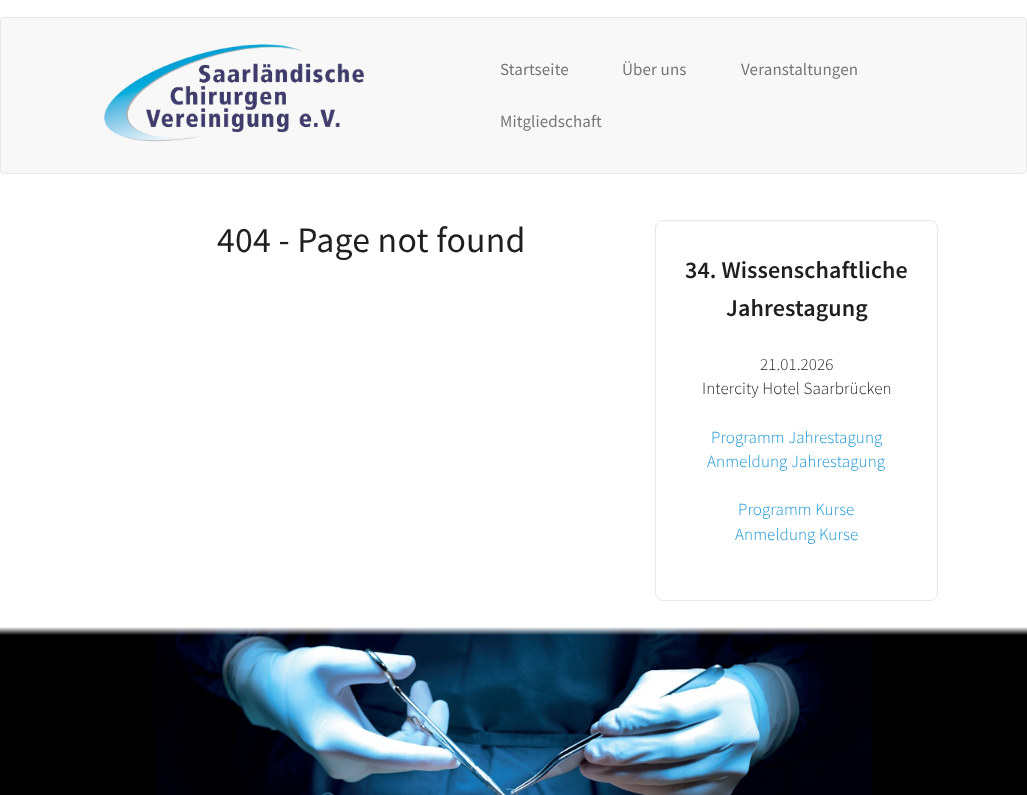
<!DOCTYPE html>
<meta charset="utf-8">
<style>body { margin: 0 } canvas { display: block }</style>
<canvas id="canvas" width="1027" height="795"></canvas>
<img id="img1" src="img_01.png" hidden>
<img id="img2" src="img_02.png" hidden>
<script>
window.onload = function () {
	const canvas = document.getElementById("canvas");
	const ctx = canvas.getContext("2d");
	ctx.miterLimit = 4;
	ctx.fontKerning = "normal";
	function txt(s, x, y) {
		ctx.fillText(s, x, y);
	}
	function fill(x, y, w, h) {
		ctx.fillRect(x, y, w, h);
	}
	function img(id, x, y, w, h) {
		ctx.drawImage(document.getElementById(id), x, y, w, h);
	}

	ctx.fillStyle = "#FFFFFF";
	fill(0, 0, 1027, 795);
	ctx.fillStyle = "#F8F8F8";
	ctx.beginPath();
	ctx.roundRect(0.5, 17.5, 1026, 156, 3.5);
	ctx.fill();
	ctx.strokeStyle = "#E7E7E7";
	ctx.stroke();
	img("img1", 104, 44, 260, 98);
	ctx.beginPath();
	ctx.roundRect(655.5, 220.5, 282, 380, 7.5);
	ctx.strokeStyle = "#E6E6E6";
	ctx.stroke();
	ctx.fillStyle = "#000000";
	fill(0, 627, 1027, 168);
	img("img2", 0, 627, 1027, 168);
	ctx.letterSpacing = "0.1px";
	ctx.font = "17px Source Sans Pro";
	ctx.fillStyle = "#777777";
	txt("Startseite", 500, 75);
	txt("Über uns", 622, 75);
	txt("Veranstaltungen", 741, 75);
	txt("Mitgliedschaft", 500, 127);
	ctx.letterSpacing = "0.25px";
	ctx.font = "35.75px Source Sans Pro";
	ctx.fillStyle = "#1F1F1F";
	txt("404 - Page not found", 217, 252);
	ctx.letterSpacing = "0.1px";
	ctx.font = "600 24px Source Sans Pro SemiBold";
	txt("34. Wissenschaftliche", 685, 278);
	txt("Jahrestagung", 726, 316);
	ctx.font = "300 17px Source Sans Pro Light";
	txt("21.01.2026", 760, 370);
	txt("Intercity Hotel Saarbrücken", 702, 394);
	ctx.fillStyle = "#1A96D3";
	txt("Programm Jahrestagung", 711, 443);
	txt("Anmeldung Jahrestagung", 707, 467);
	txt("Programm Kurse", 738, 515);
	txt("Anmeldung Kurse", 735, 540);
};
</script>
